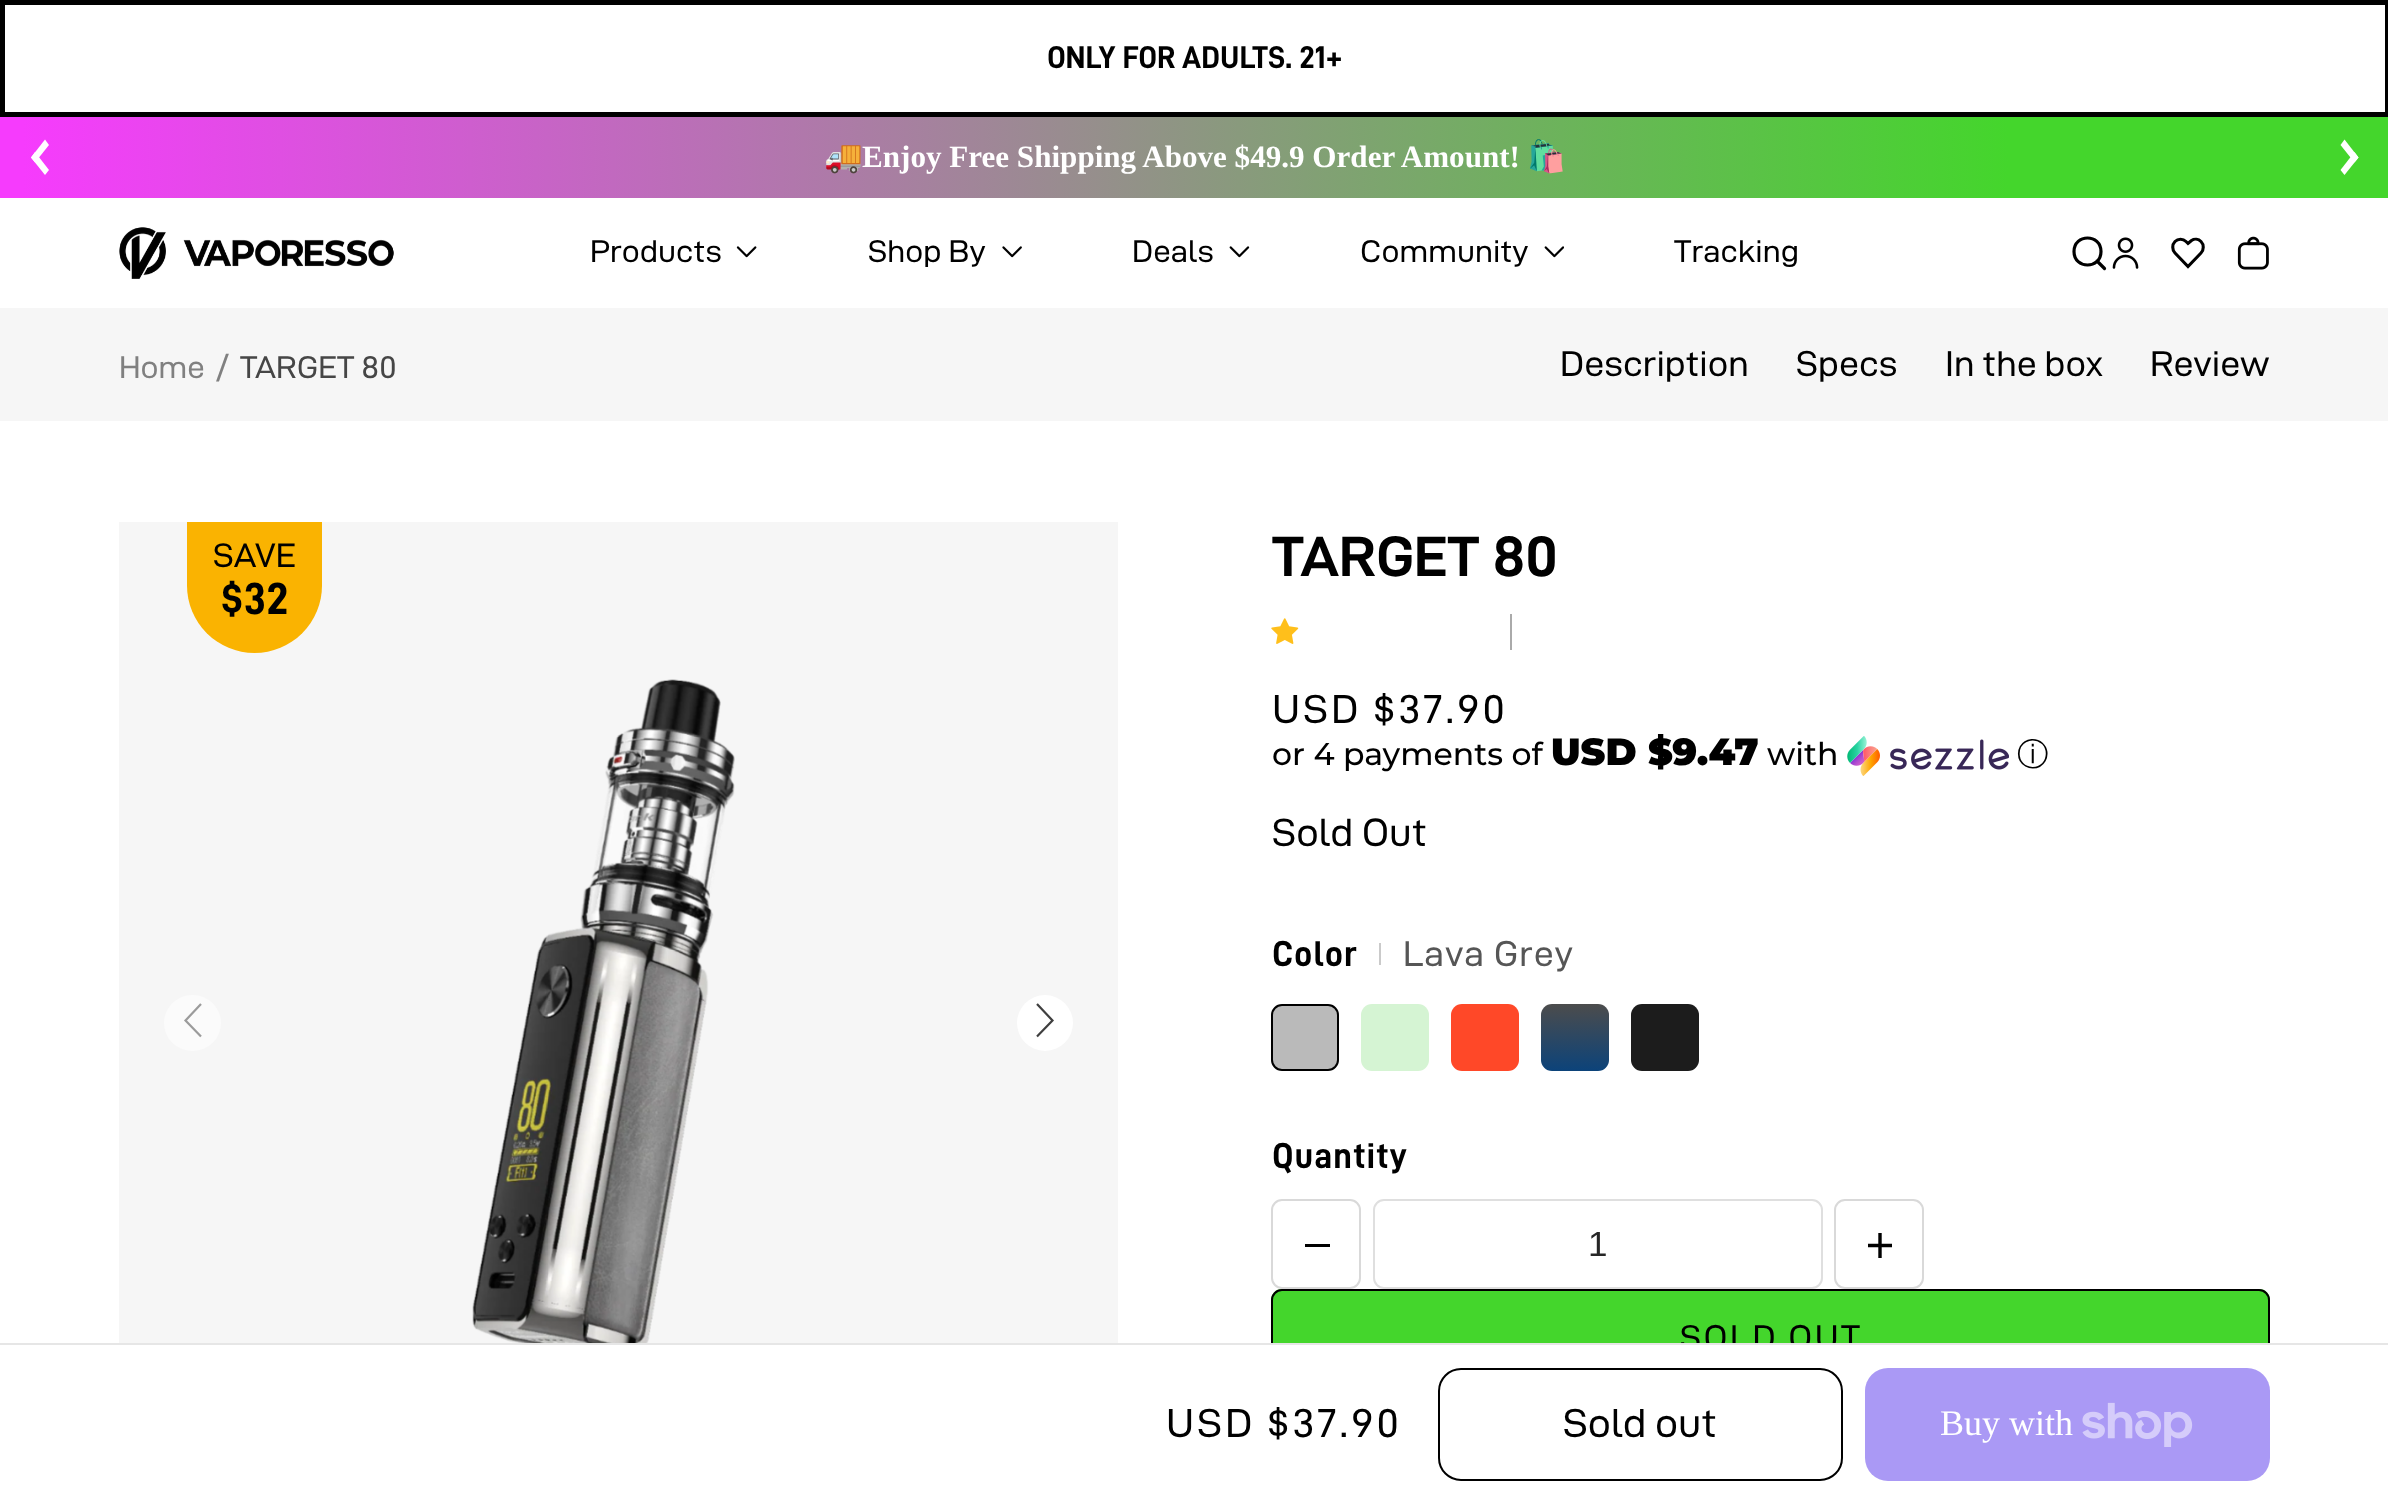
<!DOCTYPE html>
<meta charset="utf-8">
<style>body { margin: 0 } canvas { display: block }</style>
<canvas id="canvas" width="2388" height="1499"></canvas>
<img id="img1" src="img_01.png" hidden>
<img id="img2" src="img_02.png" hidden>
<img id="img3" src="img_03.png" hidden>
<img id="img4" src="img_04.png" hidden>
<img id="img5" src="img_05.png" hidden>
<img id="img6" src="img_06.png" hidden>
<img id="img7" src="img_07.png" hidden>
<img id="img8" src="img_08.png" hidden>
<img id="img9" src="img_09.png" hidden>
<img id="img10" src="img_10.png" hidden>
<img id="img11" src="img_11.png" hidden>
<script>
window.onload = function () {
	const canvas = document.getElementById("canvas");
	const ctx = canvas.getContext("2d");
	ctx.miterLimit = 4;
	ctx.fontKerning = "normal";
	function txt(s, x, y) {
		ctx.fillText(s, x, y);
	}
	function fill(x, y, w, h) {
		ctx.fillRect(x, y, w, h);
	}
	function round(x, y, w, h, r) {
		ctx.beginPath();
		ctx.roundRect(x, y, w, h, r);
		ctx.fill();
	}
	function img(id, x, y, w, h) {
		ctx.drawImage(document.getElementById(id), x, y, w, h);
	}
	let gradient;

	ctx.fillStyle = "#FFFFFF";
	fill(0, 0, 2388, 1499);
	ctx.strokeStyle = "#000000";
	ctx.lineWidth = 5;
	ctx.strokeRect(2.5, 2.5, 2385, 112);
	gradient = ctx.createLinearGradient(0, 158, 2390, 157);
	gradient.addColorStop(0.01, "#F63BFD");
	gradient.addColorStop(0.84, "#44D62C");
	ctx.fillStyle = gradient;
	fill(0, 117, 2388, 81);
	ctx.fillStyle = "#FFFFFF";
	ctx.beginPath();
	ctx.moveTo(31, 157.5);
	ctx.lineTo(45, 139.5);
	ctx.lineTo(49, 145);
	ctx.lineTo(35, 162.5);
	ctx.closePath();
	ctx.fill();
	ctx.beginPath();
	ctx.moveTo(31, 157.5);
	ctx.lineTo(35, 152);
	ctx.lineTo(49, 170);
	ctx.lineTo(45, 175);
	ctx.closePath();
	ctx.fill();
	ctx.beginPath();
	ctx.moveTo(2358.5, 157.5);
	ctx.lineTo(2344.5, 175);
	ctx.lineTo(2340.5, 170);
	ctx.lineTo(2354.5, 152);
	ctx.closePath();
	ctx.fill();
	ctx.beginPath();
	ctx.moveTo(2358.5, 157.5);
	ctx.lineTo(2354.5, 162.5);
	ctx.lineTo(2340.5, 145);
	ctx.lineTo(2344.5, 139.5);
	ctx.closePath();
	ctx.fill();
	img("img1", 119, 227, 275, 52);
	img("img2", 736, 246, 21, 12);
	img("img3", 1002, 246, 20, 12);
	img("img4", 1229, 246, 21, 12);
	img("img5", 1544, 246, 20, 12);
	ctx.beginPath();
	ctx.moveTo(2104.5, 268.5);
	ctx.lineTo(2097, 261);
	ctx.moveTo(2101, 251.5);
	ctx.bezierCurveTo(2101, 269.5, 2074, 269.5, 2074, 251.5);
	ctx.bezierCurveTo(2074, 233.5, 2101, 233.5, 2101, 251.5);
	ctx.closePath();
	ctx.lineWidth = 3.2;
	ctx.lineCap = "round";
	ctx.stroke();
	img("img6", 2112, 237, 27, 32);
	ctx.beginPath();
	ctx.moveTo(2201, 253);
	ctx.lineTo(2188, 266.5);
	ctx.lineTo(2175, 253);
	ctx.bezierCurveTo(2172, 250, 2172, 244.5, 2175, 241.5);
	ctx.bezierCurveTo(2178, 238.5, 2183, 238.5, 2186, 241.5);
	ctx.lineTo(2188, 243.5);
	ctx.lineTo(2191.5, 240.5);
	ctx.bezierCurveTo(2194.5, 238.5, 2198.5, 239, 2201, 241.5);
	ctx.bezierCurveTo(2204, 244.5, 2204, 250, 2201, 253);
	ctx.closePath();
	ctx.lineWidth = 3.1;
	ctx.lineCap = "butt";
	ctx.stroke();
	img("img7", 2237, 236, 32, 34);
	ctx.fillStyle = "#F6F6F6";
	fill(0, 308, 2388, 113);
	fill(119, 522, 999, 821);
	ctx.fillStyle = "#FAB301";
	ctx.beginPath();
	ctx.roundRect(187, 522, 135, 131, [0, 0, 67.5, 67.5]);
	ctx.fill();
	img("img8", 472, 679, 263, 664);
	ctx.fillStyle = "#FBFBFB";
	round(164, 995, 57, 56, 28);
	ctx.beginPath();
	ctx.moveTo(201, 1004);
	ctx.lineTo(185.5, 1020.5);
	ctx.lineTo(201, 1036.5);
	ctx.strokeStyle = "#9B9B9B";
	ctx.lineWidth = 2.2;
	ctx.stroke();
	ctx.fillStyle = "#FFFFFF";
	ctx.beginPath();
	ctx.arc(1045, 1023, 28, 0, Math.PI * 2);
	ctx.fill();
	ctx.beginPath();
	ctx.moveTo(1037, 1004);
	ctx.lineTo(1052.5, 1020.5);
	ctx.lineTo(1037, 1036.5);
	ctx.strokeStyle = "#3F3F3F";
	ctx.stroke();
	img("img9", 1271, 618, 28, 26);
	ctx.fillStyle = "#AAAAAA";
	fill(1510, 614, 2, 36);
	img("img10", 1847, 736, 162, 40);
	ctx.fillStyle = "#CACACA";
	fill(1379, 943, 2, 22);
	ctx.fillStyle = "#BABABA";
	ctx.beginPath();
	ctx.roundRect(1272, 1005, 66, 65, 10);
	ctx.fill();
	ctx.strokeStyle = "#000000";
	ctx.lineWidth = 2;
	ctx.stroke();
	ctx.fillStyle = "#D5F4D3";
	round(1361, 1004, 68, 67, 11);
	ctx.fillStyle = "#FF4828";
	round(1451, 1004, 68, 67, 11);
	gradient = ctx.createLinearGradient(1575, 1004, 1575, 1071);
	gradient.addColorStop(0, "#4C4C4C");
	gradient.addColorStop(1, "#0C437A");
	ctx.fillStyle = gradient;
	round(1541, 1004, 68, 67, 11);
	ctx.fillStyle = "#1C1C1C";
	round(1631, 1004, 68, 67, 11);
	ctx.beginPath();
	ctx.roundRect(1272, 1200, 88, 88, 10);
	ctx.strokeStyle = "#D9D9D9";
	ctx.stroke();
	ctx.fillStyle = "#000000";
	fill(1305, 1244, 25, 3);
	ctx.beginPath();
	ctx.roundRect(1374, 1200, 448, 88, 10);
	ctx.strokeStyle = "#DFDFDF";
	ctx.stroke();
	ctx.beginPath();
	ctx.roundRect(1835, 1200, 88, 88, 10);
	ctx.strokeStyle = "#D9D9D9";
	ctx.stroke();
	ctx.save();
	ctx.beginPath();
	ctx.rect(1868, 1233, 24, 25);
	ctx.clip();
	ctx.beginPath();
	ctx.moveTo(1867.5, 1245.5);
	ctx.lineTo(1892, 1245.5);
	ctx.moveTo(1880, 1258);
	ctx.lineTo(1880, 1233);
	ctx.strokeStyle = "#000000";
	ctx.lineWidth = 3.4;
	ctx.stroke();
	ctx.restore();
	ctx.fillStyle = "#44D62C";
	round(1271, 1289, 999, 97, 11);
	ctx.beginPath();
	ctx.roundRect(1272, 1290, 997, 95, 10);
	ctx.strokeStyle = "#000000";
	ctx.stroke();
	ctx.font = "bold 31.5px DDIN";
	ctx.fillStyle = "#000000";
	txt("ONLY FOR ADULTS. 21+", 1047, 68);
	ctx.font = "bold 31.1px Noto Color Emoji";
	ctx.fillStyle = "#FFFFFF";
	txt("🚚", 824, 167);
	ctx.font = "bold 31.1px Liberation Serif";
	txt("Enjoy Free Shipping Above $49.9 Order Amount!", 862, 167);
	ctx.font = "bold 31.1px Noto Color Emoji";
	txt("🛍️", 1527, 167);
	ctx.font = "31.5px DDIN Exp";
	ctx.fillStyle = "#000000";
	txt("Products", 590, 262);
	txt("Shop By", 868, 262);
	txt("Deals", 1132, 262);
	txt("Community", 1360, 262);
	txt("Tracking", 1674, 262);
	ctx.fillStyle = "#808080";
	txt("Home", 119, 378);
	ctx.font = "39.5px DDIN Exp";
	txt("/", 214, 381);
	ctx.font = "31.5px DDIN Exp";
	ctx.fillStyle = "#464646";
	txt("TARGET 80", 240, 378);
	ctx.font = "36px DDIN Exp";
	ctx.fillStyle = "#000000";
	txt("Description", 1560, 376);
	txt("Specs", 1796, 376);
	txt("In the box", 1945, 376);
	txt("Review", 2150, 376);
	ctx.font = "34px DDIN Exp";
	txt("SAVE", 213, 567);
	ctx.font = "bold 45px DDIN";
	txt("$32", 221, 614);
	ctx.font = "bold 57px DDIN Exp";
	txt("TARGET 80", 1272, 576);
	ctx.letterSpacing = "3.25px";
	ctx.font = "40.5px DDIN Exp";
	txt("USD $37.90", 1272, 723);
	ctx.letterSpacing = "0px";
	ctx.font = "500 31.5px Montserrat";
	txt("or 4 payments of", 1272, 765);
	ctx.font = "900 37.75px Montserrat";
	txt("USD $9.47", 1551, 765);
	ctx.font = "500 31.5px Montserrat";
	txt("with", 1767, 765);
	ctx.font = "500 31.5px WenQuanYi Zen Hei";
	txt("ⓘ", 2017, 765);
	ctx.font = "39.5px DDIN Exp";
	txt("Sold Out", 1272, 846);
	ctx.letterSpacing = "1px";
	ctx.font = "bold 36px DDIN";
	txt("Color", 1272, 966);
	ctx.font = "36px DDIN Exp";
	ctx.fillStyle = "#565656";
	txt("Lava Grey", 1403, 966);
	ctx.font = "bold 36px DDIN";
	ctx.fillStyle = "#000000";
	txt("Quantity", 1272, 1168);
	ctx.letterSpacing = "0px";
	ctx.font = "35px Liberation Sans";
	ctx.fillStyle = "#262626";
	txt("1", 1588, 1256);
	ctx.letterSpacing = "2.5px";
	ctx.font = "34.5px DDIN Exp";
	ctx.fillStyle = "#000000";
	txt("SOLD OUT", 1680, 1349);
	ctx.fillStyle = "#FFFFFF";
	fill(1271, 1345, 999, 41);
	ctx.fillStyle = "#E6E6E6";
	fill(0, 1343, 2388, 2);
	ctx.letterSpacing = "3.25px";
	ctx.font = "40.5px DDIN Exp";
	ctx.fillStyle = "#000000";
	txt("USD $37.90", 1166, 1437);
	ctx.beginPath();
	ctx.roundRect(1439, 1369, 403, 111, 22);
	ctx.stroke();
	ctx.letterSpacing = "0px";
	txt("Sold out", 1563, 1437);
	ctx.fillStyle = "#AA99F5";
	round(1865, 1368, 405, 113, 23);
	ctx.font = "36px Liberation Serif";
	ctx.fillStyle = "#FFFFFF";
	txt("Buy with", 1940, 1435);
	img("img11", 2082, 1402, 111, 45);
};
</script>
